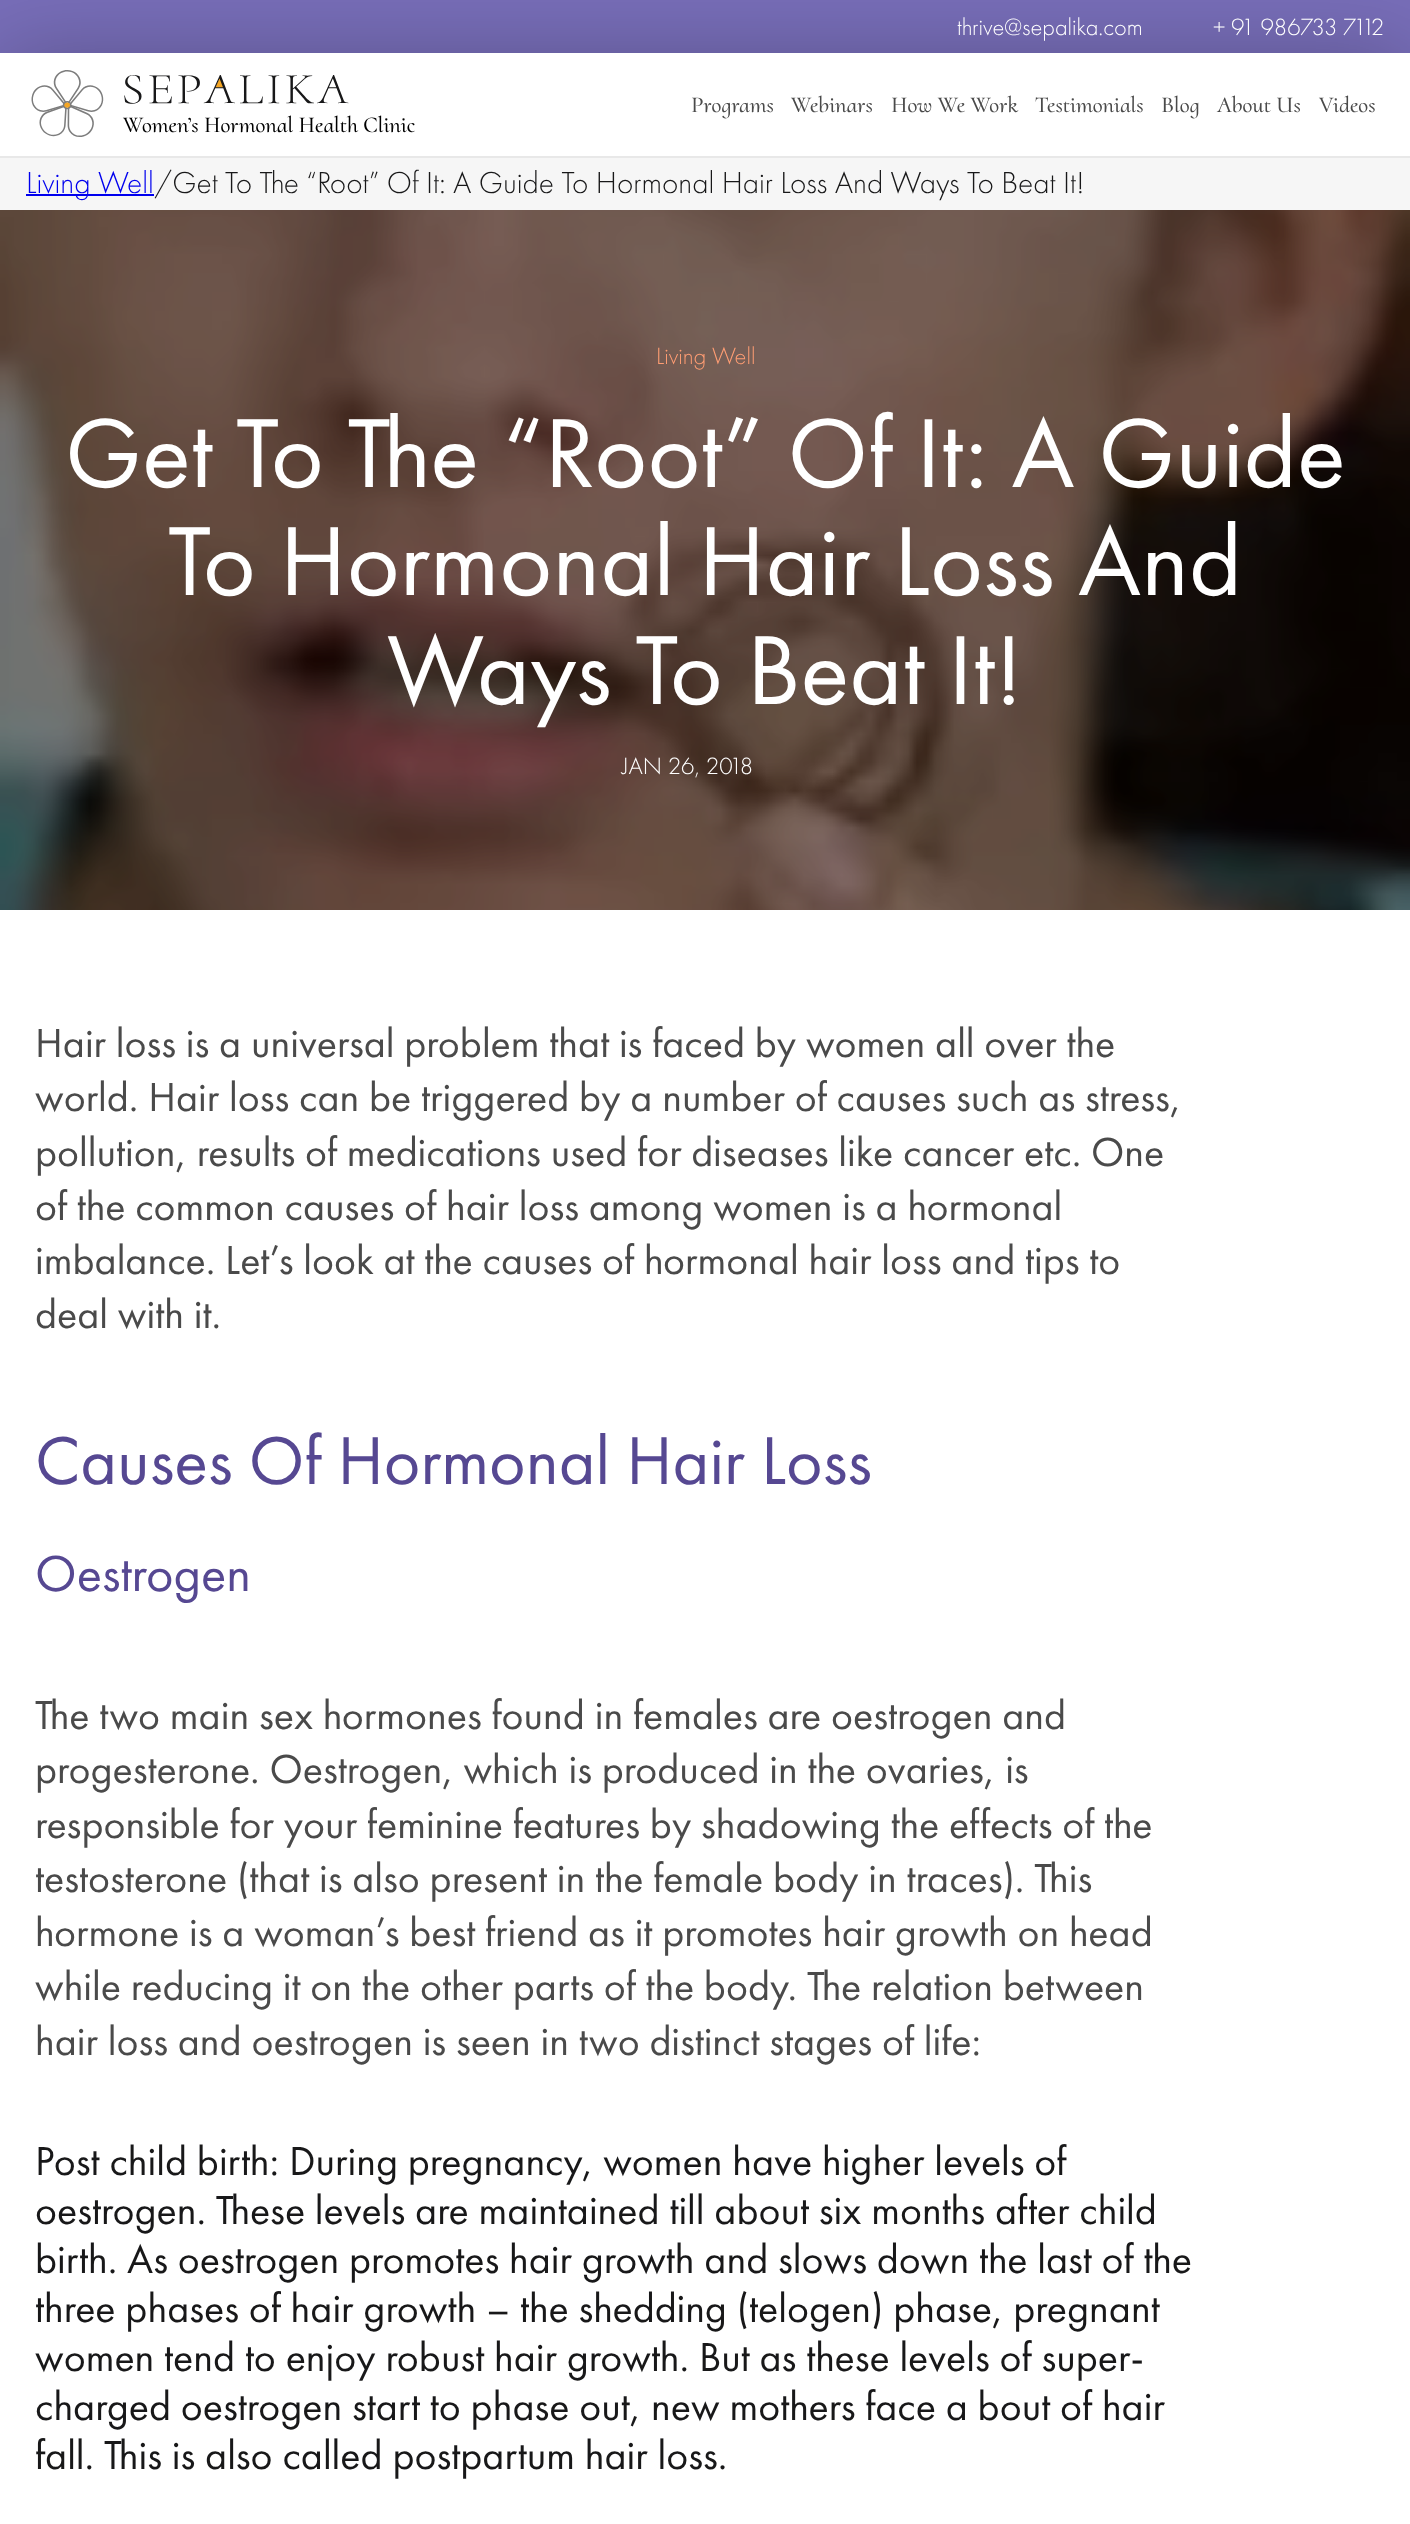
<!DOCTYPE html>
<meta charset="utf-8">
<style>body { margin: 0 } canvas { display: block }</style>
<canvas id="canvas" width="1410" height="2524"></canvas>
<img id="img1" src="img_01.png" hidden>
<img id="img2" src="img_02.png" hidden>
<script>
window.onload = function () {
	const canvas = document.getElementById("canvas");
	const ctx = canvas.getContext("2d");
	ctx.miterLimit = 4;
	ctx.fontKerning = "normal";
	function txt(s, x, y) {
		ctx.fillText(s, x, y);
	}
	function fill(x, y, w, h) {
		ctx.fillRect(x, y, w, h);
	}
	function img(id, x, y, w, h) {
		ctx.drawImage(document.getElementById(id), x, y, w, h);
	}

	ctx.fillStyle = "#FFFFFF";
	fill(0, 0, 1410, 2524);
	ctx.fillStyle = "#786EB9";
	fill(0, 0, 1410, 53);
	ctx.fillStyle = "rgba(0, 0, 0, 0.25)";
	ctx.filter = "blur(44px)";
	ctx.beginPath();
	ctx.rect(0, 56, 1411, 105);
	ctx.fill();
	ctx.filter = "none";
	ctx.fillStyle = "#FFFFFF";
	fill(0, 53, 1410, 103);
	ctx.fillStyle = "#E8E8E8";
	fill(0, 156, 1410, 2);
	img("img1", 31, 70, 318, 67);
	ctx.fillStyle = "#F6F6F6";
	fill(0, 158, 1410, 52);
	ctx.fillStyle = "#0000EE";
	fill(26, 194, 128, 2);
	img("img2", 0, 210, 1410, 700);
	ctx.font = "300 24.5px Futura PT";
	ctx.fillStyle = "#FFFFFF";
	txt("thrive@sepalika.com", 957, 35);
	txt("+ 91 986733 7112", 1213, 35);
	ctx.font = "500 22.75px Cormorant Upright";
	ctx.fillStyle = "#4A4A4A";
	txt("Programs", 691, 112);
	txt("Webinars", 791, 112);
	txt("How We Work", 891, 112);
	txt("Testimonials", 1035, 112);
	txt("Blog", 1161, 112);
	txt("About Us", 1217, 112);
	txt("Videos", 1319, 112);
	ctx.fillStyle = "#000000";
	txt("Women’s Hormonal Health Clinic", 123, 132);
	ctx.font = "300 31.5px Futura PT";
	ctx.fillStyle = "#0000EE";
	txt("Living Well", 26, 193);
	ctx.fillStyle = "#181819";
	txt("/Get To The “Root” Of It: A Guide To Hormonal Hair Loss And Ways To Beat It!", 154, 193);
	ctx.font = "300 24.5px Futura PT";
	ctx.fillStyle = "#FF9D73";
	txt("Living Well", 656, 364);
	ctx.font = "101.5px Futura PT";
	ctx.fillStyle = "#FFFFFF";
	txt("Get To The “Root” Of It: A Guide", 65, 487);
	txt("To Hormonal Hair Loss And", 168, 595);
	txt("Ways To Beat It!", 387, 704);
	ctx.font = "300 24.5px Futura PT";
	txt("JAN 26, 2018", 622, 774);
	ctx.font = "42px Futura PT";
	ctx.fillStyle = "#4A4A4A";
	txt("Hair loss is a universal problem that is faced by women all over the", 35, 1057);
	txt("world. Hair loss can be triggered by a number of causes such as stress,", 35, 1111);
	txt("pollution, results of medications used for diseases like cancer etc. One", 35, 1166);
	txt("of the common causes of hair loss among women is a hormonal", 35, 1220);
	txt("imbalance. Let’s look at the causes of hormonal hair loss and tips to", 35, 1274);
	txt("deal with it.", 35, 1328);
	ctx.font = "70px Futura PT";
	ctx.fillStyle = "#564892";
	txt("Causes Of Hormonal Hair Loss", 35, 1484);
	ctx.font = "52.5px Futura PT";
	txt("Oestrogen", 35, 1591);
	ctx.font = "42px Futura PT";
	ctx.fillStyle = "#4A4A4A";
	txt("The two main sex hormones found in females are oestrogen and", 35, 1729);
	txt("progesterone. Oestrogen, which is produced in the ovaries, is", 35, 1783);
	txt("responsible for your feminine features by shadowing the effects of the", 35, 1838);
	txt("testosterone (that is also present in the female body in traces). This", 35, 1892);
	txt("hormone is a woman’s best friend as it promotes hair growth on head", 35, 1946);
	txt("while reducing it on the other parts of the body. The relation between", 35, 2000);
	txt("hair loss and oestrogen is seen in two distinct stages of life:", 35, 2055);
	ctx.fillStyle = "#181819";
	txt("Post child birth: During pregnancy, women have higher levels of", 35, 2175);
	txt("oestrogen. These levels are maintained till about six months after child", 35, 2224);
	txt("birth. As oestrogen promotes hair growth and slows down the last of the", 35, 2273);
	txt("three phases of hair growth – the shedding (telogen) phase, pregnant", 35, 2322);
	txt("women tend to enjoy robust hair growth. But as these levels of super-", 35, 2371);
	txt("charged oestrogen start to phase out, new mothers face a bout of hair", 35, 2420);
	txt("fall. This is also called postpartum hair loss.", 35, 2469);
};
</script>
